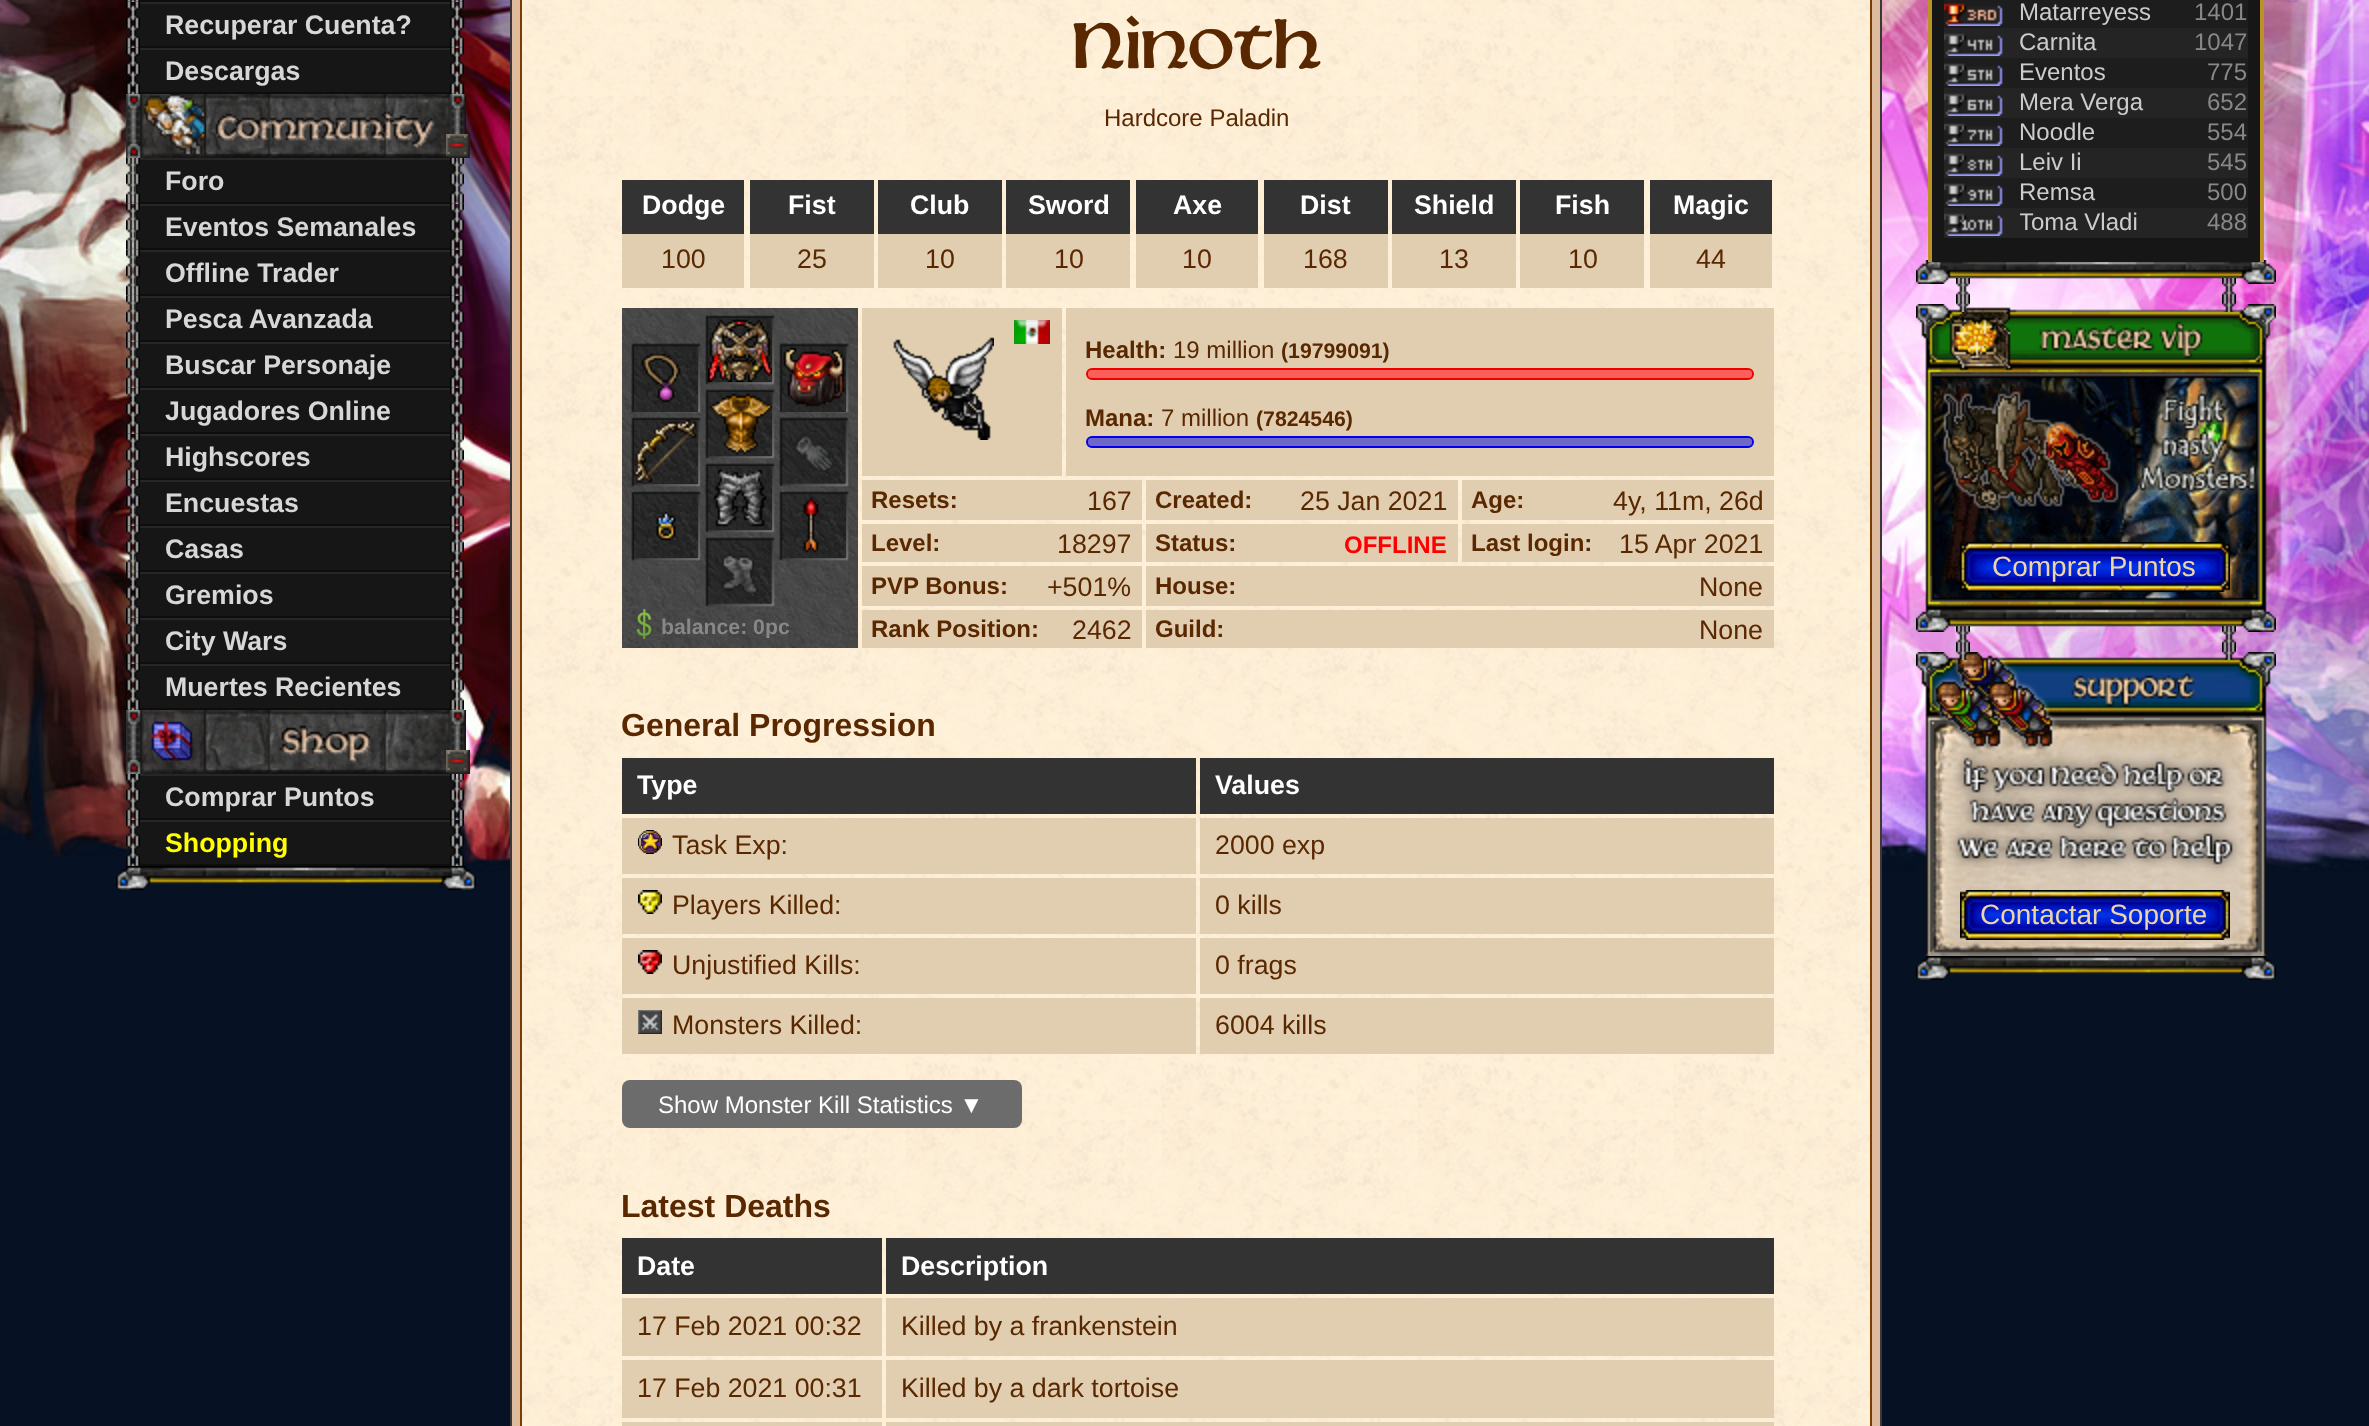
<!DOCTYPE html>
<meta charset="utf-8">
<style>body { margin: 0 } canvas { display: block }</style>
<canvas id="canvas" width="2369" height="1426"></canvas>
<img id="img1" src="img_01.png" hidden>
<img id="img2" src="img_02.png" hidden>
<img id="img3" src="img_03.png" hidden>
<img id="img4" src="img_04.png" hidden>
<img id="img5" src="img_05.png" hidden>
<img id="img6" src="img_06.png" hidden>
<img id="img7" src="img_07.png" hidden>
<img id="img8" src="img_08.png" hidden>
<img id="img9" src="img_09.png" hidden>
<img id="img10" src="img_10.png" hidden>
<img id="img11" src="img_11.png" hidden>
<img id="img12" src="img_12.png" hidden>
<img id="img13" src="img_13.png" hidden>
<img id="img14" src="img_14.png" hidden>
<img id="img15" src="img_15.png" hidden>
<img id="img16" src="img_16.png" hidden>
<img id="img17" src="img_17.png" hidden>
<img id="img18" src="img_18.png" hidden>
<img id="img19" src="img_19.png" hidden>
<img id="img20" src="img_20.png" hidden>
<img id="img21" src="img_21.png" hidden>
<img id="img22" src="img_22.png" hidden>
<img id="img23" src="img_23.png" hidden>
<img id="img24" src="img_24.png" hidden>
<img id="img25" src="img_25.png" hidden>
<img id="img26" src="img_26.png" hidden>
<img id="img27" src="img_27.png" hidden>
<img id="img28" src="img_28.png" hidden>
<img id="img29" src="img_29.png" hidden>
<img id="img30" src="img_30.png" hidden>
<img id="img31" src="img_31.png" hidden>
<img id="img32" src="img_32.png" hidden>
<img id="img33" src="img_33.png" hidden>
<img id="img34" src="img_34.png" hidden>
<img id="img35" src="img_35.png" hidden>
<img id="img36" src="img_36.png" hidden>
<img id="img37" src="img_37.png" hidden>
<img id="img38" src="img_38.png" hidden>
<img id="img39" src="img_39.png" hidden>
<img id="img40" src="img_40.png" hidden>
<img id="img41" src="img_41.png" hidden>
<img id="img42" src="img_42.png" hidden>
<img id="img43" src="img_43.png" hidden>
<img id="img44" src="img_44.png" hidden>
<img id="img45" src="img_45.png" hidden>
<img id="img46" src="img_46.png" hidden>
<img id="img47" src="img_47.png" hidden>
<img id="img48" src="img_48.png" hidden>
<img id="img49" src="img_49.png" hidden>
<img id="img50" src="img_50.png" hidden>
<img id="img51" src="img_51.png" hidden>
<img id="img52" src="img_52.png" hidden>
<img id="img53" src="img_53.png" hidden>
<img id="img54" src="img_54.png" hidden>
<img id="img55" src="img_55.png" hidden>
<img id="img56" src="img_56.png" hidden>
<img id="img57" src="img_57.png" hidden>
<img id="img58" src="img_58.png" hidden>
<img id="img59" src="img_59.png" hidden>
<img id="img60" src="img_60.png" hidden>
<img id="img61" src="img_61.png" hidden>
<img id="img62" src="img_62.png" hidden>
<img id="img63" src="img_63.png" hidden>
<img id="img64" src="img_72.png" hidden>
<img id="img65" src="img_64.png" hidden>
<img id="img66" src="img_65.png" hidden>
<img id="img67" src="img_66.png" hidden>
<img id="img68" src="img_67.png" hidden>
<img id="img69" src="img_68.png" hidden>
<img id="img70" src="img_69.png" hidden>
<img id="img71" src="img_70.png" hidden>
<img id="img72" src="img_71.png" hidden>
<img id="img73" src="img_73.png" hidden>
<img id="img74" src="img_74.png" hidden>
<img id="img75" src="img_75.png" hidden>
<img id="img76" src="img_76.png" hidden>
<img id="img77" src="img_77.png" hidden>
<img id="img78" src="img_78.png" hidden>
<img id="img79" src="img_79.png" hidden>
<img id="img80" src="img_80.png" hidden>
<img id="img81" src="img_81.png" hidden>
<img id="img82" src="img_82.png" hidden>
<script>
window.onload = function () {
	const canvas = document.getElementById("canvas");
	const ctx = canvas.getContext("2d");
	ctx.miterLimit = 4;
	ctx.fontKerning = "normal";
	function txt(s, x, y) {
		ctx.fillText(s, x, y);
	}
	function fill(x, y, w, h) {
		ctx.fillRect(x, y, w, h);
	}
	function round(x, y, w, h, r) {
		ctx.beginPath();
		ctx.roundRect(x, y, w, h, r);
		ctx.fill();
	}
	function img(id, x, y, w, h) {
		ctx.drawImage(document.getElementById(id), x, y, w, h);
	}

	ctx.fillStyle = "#061123";
	fill(0, 0, 2369, 1426);
	img("img1", 0, 0, 2369, 888);
	ctx.fillStyle = "#161616";
	fill(136, 4, 320, 88);
	ctx.fillStyle = "#0D0D0D";
	fill(136, 0, 320, 2);
	img("img2", 126, 0, 14, 2);
	img("img3", 450, 0, 14, 2);
	ctx.fillStyle = "#262626";
	fill(136, 2, 320, 2);
	ctx.fillStyle = "#0D0D0D";
	fill(136, 46, 320, 2);
	img("img4", 126, 2, 14, 46);
	img("img5", 450, 2, 14, 46);
	ctx.fillStyle = "#262626";
	fill(136, 48, 320, 2);
	ctx.fillStyle = "#0D0D0D";
	fill(136, 92, 320, 2);
	img("img6", 126, 48, 14, 46);
	img("img7", 450, 48, 14, 46);
	img("img8", 126, 94, 340, 64);
	img("img9", 143, 94, 63, 62);
	img("img10", 215, 111, 220, 38);
	img("img11", 446, 134, 24, 24);
	ctx.fillStyle = "#161616";
	fill(136, 160, 320, 548);
	ctx.fillStyle = "#262626";
	fill(136, 158, 320, 2);
	ctx.fillStyle = "#0D0D0D";
	fill(136, 202, 320, 2);
	img("img12", 126, 158, 14, 46);
	img("img13", 450, 158, 14, 46);
	ctx.fillStyle = "#262626";
	fill(136, 204, 320, 2);
	ctx.fillStyle = "#0D0D0D";
	fill(136, 248, 320, 2);
	img("img14", 126, 204, 14, 46);
	img("img15", 450, 204, 14, 46);
	ctx.fillStyle = "#262626";
	fill(136, 250, 320, 2);
	ctx.fillStyle = "#0D0D0D";
	fill(136, 294, 320, 2);
	img("img16", 126, 250, 14, 46);
	img("img17", 450, 250, 14, 46);
	ctx.fillStyle = "#262626";
	fill(136, 296, 320, 2);
	ctx.fillStyle = "#0D0D0D";
	fill(136, 340, 320, 2);
	img("img18", 126, 296, 14, 46);
	img("img19", 450, 296, 14, 46);
	ctx.fillStyle = "#262626";
	fill(136, 342, 320, 2);
	ctx.fillStyle = "#0D0D0D";
	fill(136, 386, 320, 2);
	img("img20", 126, 342, 14, 46);
	img("img21", 450, 342, 14, 46);
	ctx.fillStyle = "#262626";
	fill(136, 388, 320, 2);
	ctx.fillStyle = "#0D0D0D";
	fill(136, 432, 320, 2);
	img("img22", 126, 388, 14, 46);
	img("img23", 450, 388, 14, 46);
	ctx.fillStyle = "#262626";
	fill(136, 434, 320, 2);
	ctx.fillStyle = "#0D0D0D";
	fill(136, 478, 320, 2);
	img("img24", 126, 434, 14, 46);
	img("img25", 450, 434, 14, 46);
	ctx.fillStyle = "#262626";
	fill(136, 480, 320, 2);
	ctx.fillStyle = "#0D0D0D";
	fill(136, 524, 320, 2);
	img("img26", 126, 480, 14, 46);
	img("img27", 450, 480, 14, 46);
	ctx.fillStyle = "#262626";
	fill(136, 526, 320, 2);
	ctx.fillStyle = "#0D0D0D";
	fill(136, 570, 320, 2);
	img("img28", 126, 526, 14, 46);
	img("img29", 450, 526, 14, 46);
	ctx.fillStyle = "#262626";
	fill(136, 572, 320, 2);
	ctx.fillStyle = "#0D0D0D";
	fill(136, 616, 320, 2);
	img("img30", 126, 572, 14, 46);
	img("img31", 450, 572, 14, 46);
	ctx.fillStyle = "#262626";
	fill(136, 618, 320, 2);
	ctx.fillStyle = "#0D0D0D";
	fill(136, 662, 320, 2);
	img("img32", 126, 618, 14, 46);
	img("img33", 450, 618, 14, 46);
	ctx.fillStyle = "#262626";
	fill(136, 664, 320, 2);
	ctx.fillStyle = "#0D0D0D";
	fill(136, 708, 320, 2);
	img("img34", 126, 664, 14, 46);
	img("img35", 450, 664, 14, 46);
	img("img8", 126, 710, 340, 64);
	img("img36", 151, 721, 42, 40);
	img("img37", 279, 725, 92, 38);
	img("img11", 446, 750, 24, 24);
	ctx.fillStyle = "#161616";
	fill(136, 776, 320, 88);
	ctx.fillStyle = "#262626";
	fill(136, 774, 320, 2);
	ctx.fillStyle = "#0D0D0D";
	fill(136, 818, 320, 2);
	img("img38", 126, 774, 14, 46);
	img("img39", 450, 774, 14, 46);
	ctx.fillStyle = "#262626";
	fill(136, 820, 320, 2);
	ctx.fillStyle = "#0D0D0D";
	fill(136, 864, 320, 2);
	img("img40", 126, 820, 14, 46);
	img("img41", 450, 820, 14, 46);
	img("img42", 116, 866, 360, 24);
	ctx.fillStyle = "#DEBB9D";
	fill(512, 0, 1368, 1426);
	ctx.fillStyle = "#3A3738";
	fill(1880, 0, 2, 1426);
	fill(510, 0, 2, 1426);
	ctx.strokeStyle = "#793D03";
	ctx.lineWidth = 2;
	ctx.strokeRect(521, -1, 1350, 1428);
	img("img43", 522, 0, 1348, 1426);
	ctx.fillStyle = "#333333";
	fill(622, 180, 122, 54);
	ctx.fillStyle = "#E1CEB1";
	fill(622, 234, 122, 54);
	ctx.fillStyle = "#333333";
	fill(750, 180, 124, 54);
	ctx.fillStyle = "#E1CEB1";
	fill(750, 234, 124, 54);
	ctx.fillStyle = "#333333";
	fill(878, 180, 124, 54);
	ctx.fillStyle = "#E1CEB1";
	fill(878, 234, 124, 54);
	ctx.fillStyle = "#333333";
	fill(1006, 180, 124, 54);
	ctx.fillStyle = "#E1CEB1";
	fill(1006, 234, 124, 54);
	ctx.fillStyle = "#333333";
	fill(1136, 180, 122, 54);
	ctx.fillStyle = "#E1CEB1";
	fill(1136, 234, 122, 54);
	ctx.fillStyle = "#333333";
	fill(1264, 180, 124, 54);
	ctx.fillStyle = "#E1CEB1";
	fill(1264, 234, 124, 54);
	ctx.fillStyle = "#333333";
	fill(1392, 180, 124, 54);
	ctx.fillStyle = "#E1CEB1";
	fill(1392, 234, 124, 54);
	ctx.fillStyle = "#333333";
	fill(1520, 180, 124, 54);
	ctx.fillStyle = "#E1CEB1";
	fill(1520, 234, 124, 54);
	ctx.fillStyle = "#333333";
	fill(1650, 180, 122, 54);
	ctx.fillStyle = "#E1CEB1";
	fill(1650, 234, 122, 54);
	img("img44", 622, 308, 236, 340);
	img("img45", 634, 348, 64, 64);
	img("img46", 641, 353, 40, 50);
	img("img47", 708, 318, 64, 64);
	img("img48", 708, 319, 64, 63);
	img("img45", 782, 348, 64, 64);
	img("img49", 783, 348, 62, 59);
	img("img50", 634, 420, 64, 64);
	img("img51", 634, 420, 63, 63);
	img("img52", 708, 392, 64, 64);
	img("img53", 709, 393, 63, 62);
	img("img50", 634, 494, 64, 64);
	img("img54", 656, 511, 20, 30);
	img("img47", 708, 466, 64, 64);
	img("img55", 713, 469, 54, 58);
	img("img50", 782, 494, 64, 64);
	img("img56", 803, 497, 16, 56);
	img("img57", 636, 609, 16, 30);
	fill(862, 308, 200, 168);
	img("img58", 1014, 320, 36, 24);
	img("img59", 893, 337, 101, 103);
	fill(1066, 308, 708, 168);
	ctx.fillStyle = "#EA907C";
	ctx.beginPath();
	ctx.roundRect(1087, 369, 666, 10, 5);
	ctx.fill();
	ctx.strokeStyle = "#EE0000";
	ctx.stroke();
	ctx.fillStyle = "rgba(255, 69, 69, 0.64)";
	round(1088, 370, 664, 8, 4);
	ctx.fillStyle = "#9E90C8";
	ctx.beginPath();
	ctx.roundRect(1087, 437, 666, 10, 5);
	ctx.fill();
	ctx.strokeStyle = "#0000EE";
	ctx.stroke();
	ctx.fillStyle = "rgba(57, 57, 198, 0.46)";
	round(1088, 438, 664, 8, 4);
	ctx.fillStyle = "#E1CEB1";
	fill(862, 480, 280, 40);
	fill(862, 524, 280, 38);
	fill(862, 566, 280, 40);
	fill(862, 610, 280, 38);
	fill(1146, 480, 312, 40);
	fill(1462, 480, 312, 40);
	fill(1146, 524, 312, 38);
	fill(1462, 524, 312, 38);
	fill(1146, 566, 628, 40);
	fill(1146, 610, 628, 38);
	ctx.fillStyle = "#333333";
	fill(622, 758, 574, 56);
	fill(1200, 758, 574, 56);
	ctx.fillStyle = "#E1CEB1";
	fill(622, 818, 574, 56);
	img("img60", 638, 830, 24, 24);
	fill(1200, 818, 574, 56);
	fill(622, 878, 574, 56);
	img("img61", 638, 890, 24, 24);
	fill(1200, 878, 574, 56);
	fill(622, 938, 574, 56);
	img("img62", 638, 950, 24, 24);
	fill(1200, 938, 574, 56);
	fill(622, 998, 574, 56);
	img("img63", 638, 1010, 24, 24);
	fill(1200, 998, 574, 56);
	ctx.fillStyle = "#6D6C6D";
	round(622, 1080, 400, 48, 8);
	ctx.fillStyle = "#333333";
	fill(622, 1238, 260, 56);
	fill(886, 1238, 888, 56);
	ctx.fillStyle = "#E1CEB1";
	fill(622, 1298, 260, 58);
	fill(886, 1298, 888, 58);
	fill(622, 1360, 260, 58);
	fill(886, 1360, 888, 58);
	fill(622, 1422, 260, 4);
	fill(886, 1422, 888, 4);
	img("img64", 1916, 260, 360, 24);
	ctx.fillStyle = "#161616";
	fill(1932, 0, 328, 262);
	ctx.fillStyle = "#BB9324";
	fill(2260, 0, 4, 262);
	fill(1928, 0, 4, 262);
	ctx.fillStyle = "#1D1D1D";
	fill(1944, 0, 304, 28);
	img("img65", 1944, 3, 59, 23);
	ctx.fillStyle = "#242424";
	fill(1944, 28, 304, 30);
	img("img66", 1944, 33, 59, 23);
	ctx.fillStyle = "#1D1D1D";
	fill(1944, 58, 304, 30);
	img("img67", 1944, 63, 59, 23);
	ctx.fillStyle = "#242424";
	fill(1944, 88, 304, 30);
	img("img68", 1944, 93, 59, 23);
	ctx.fillStyle = "#1D1D1D";
	fill(1944, 118, 304, 30);
	img("img69", 1944, 123, 59, 23);
	ctx.fillStyle = "#242424";
	fill(1944, 148, 304, 30);
	img("img70", 1944, 153, 59, 23);
	ctx.fillStyle = "#1D1D1D";
	fill(1944, 178, 304, 30);
	img("img71", 1944, 183, 59, 23);
	ctx.fillStyle = "#242424";
	fill(1944, 208, 304, 30);
	img("img72", 1944, 213, 59, 23);
	img("img73", 1916, 304, 360, 304);
	img("img74", 1956, 278, 14, 34);
	img("img75", 2222, 278, 14, 34);
	img("img76", 1960, 542, 270, 50);
	img("img77", 1916, 608, 360, 24);
	img("img78", 1916, 652, 360, 304);
	img("img79", 1956, 626, 14, 34);
	img("img80", 2222, 626, 14, 34);
	img("img81", 1960, 890, 270, 50);
	img("img82", 1916, 956, 360, 24);
	ctx.font = "bold 26.75px Liberation Sans";
	ctx.fillStyle = "#D7D7D7";
	txt("Recuperar Cuenta?", 165, 34);
	txt("Descargas", 165, 80);
	txt("Foro", 165, 190);
	txt("Eventos Semanales", 165, 236);
	txt("Offline Trader", 165, 282);
	txt("Pesca Avanzada", 165, 328);
	txt("Buscar Personaje", 165, 374);
	txt("Jugadores Online", 165, 420);
	txt("Highscores", 165, 466);
	txt("Encuestas", 165, 512);
	txt("Casas", 165, 558);
	txt("Gremios", 165, 604);
	txt("City Wars", 165, 650);
	txt("Muertes Recientes", 165, 696);
	txt("Comprar Puntos", 165, 806);
	ctx.fillStyle = "#FFFF00";
	txt("Shopping", 165, 852);
	ctx.font = "80px Martel";
	ctx.fillStyle = "#5A2800";
	txt("Ninoth", 1072, 68);
	ctx.font = "24px Liberation Sans";
	txt("Hardcore Paladin", 1104, 126);
	ctx.font = "bold 26.75px Liberation Sans";
	ctx.fillStyle = "#FFFFFF";
	txt("Dodge", 642, 214);
	ctx.font = "26.75px Liberation Sans";
	ctx.fillStyle = "#5A2800";
	txt("100", 661, 268);
	ctx.font = "bold 26.75px Liberation Sans";
	ctx.fillStyle = "#FFFFFF";
	txt("Fist", 788, 214);
	ctx.font = "26.75px Liberation Sans";
	ctx.fillStyle = "#5A2800";
	txt("25", 797, 268);
	ctx.font = "bold 26.75px Liberation Sans";
	ctx.fillStyle = "#FFFFFF";
	txt("Club", 910, 214);
	ctx.font = "26.75px Liberation Sans";
	ctx.fillStyle = "#5A2800";
	txt("10", 925, 268);
	ctx.font = "bold 26.75px Liberation Sans";
	ctx.fillStyle = "#FFFFFF";
	txt("Sword", 1028, 214);
	ctx.font = "26.75px Liberation Sans";
	ctx.fillStyle = "#5A2800";
	txt("10", 1054, 268);
	ctx.font = "bold 26.75px Liberation Sans";
	ctx.fillStyle = "#FFFFFF";
	txt("Axe", 1173, 214);
	ctx.font = "26.75px Liberation Sans";
	ctx.fillStyle = "#5A2800";
	txt("10", 1182, 268);
	ctx.font = "bold 26.75px Liberation Sans";
	ctx.fillStyle = "#FFFFFF";
	txt("Dist", 1300, 214);
	ctx.font = "26.75px Liberation Sans";
	ctx.fillStyle = "#5A2800";
	txt("168", 1303, 268);
	ctx.font = "bold 26.75px Liberation Sans";
	ctx.fillStyle = "#FFFFFF";
	txt("Shield", 1414, 214);
	ctx.font = "26.75px Liberation Sans";
	ctx.fillStyle = "#5A2800";
	txt("13", 1439, 268);
	ctx.font = "bold 26.75px Liberation Sans";
	ctx.fillStyle = "#FFFFFF";
	txt("Fish", 1555, 214);
	ctx.font = "26.75px Liberation Sans";
	ctx.fillStyle = "#5A2800";
	txt("10", 1568, 268);
	ctx.font = "bold 26.75px Liberation Sans";
	ctx.fillStyle = "#FFFFFF";
	txt("Magic", 1673, 214);
	ctx.font = "26.75px Liberation Sans";
	ctx.fillStyle = "#5A2800";
	txt("44", 1696, 268);
	ctx.save();
	ctx.beginPath();
	ctx.rect(662, 614, 190, 24);
	ctx.clip();
	ctx.font = "bold 21.25px Liberation Sans";
	ctx.fillStyle = "#888888";
	txt("balance: 0pc", 661, 634);
	ctx.restore();
	ctx.font = "bold 24px Liberation Sans";
	txt("Health:", 1085, 358);
	ctx.font = "24px Liberation Sans";
	txt("19 million", 1173, 358);
	ctx.font = "bold 21.25px Liberation Sans";
	txt("(19799091)", 1281, 358);
	ctx.font = "bold 24px Liberation Sans";
	txt("Mana:", 1085, 426);
	ctx.font = "24px Liberation Sans";
	txt("7 million", 1161, 426);
	ctx.font = "bold 21.25px Liberation Sans";
	txt("(7824546)", 1256, 426);
	ctx.font = "bold 24px Liberation Sans";
	txt("Resets:", 871, 508);
	ctx.font = "26.75px Liberation Sans";
	txt("167", 1087, 510);
	ctx.font = "bold 24px Liberation Sans";
	txt("Level:", 871, 551);
	ctx.font = "26.75px Liberation Sans";
	txt("18297", 1057, 553);
	ctx.font = "bold 24px Liberation Sans";
	txt("PVP Bonus:", 871, 594);
	ctx.font = "26.75px Liberation Sans";
	txt("+501%", 1047, 596);
	ctx.font = "bold 24px Liberation Sans";
	txt("Rank Position:", 871, 637);
	ctx.font = "26.75px Liberation Sans";
	txt("2462", 1072, 639);
	ctx.font = "bold 24px Liberation Sans";
	txt("Created:", 1155, 508);
	ctx.font = "26.75px Liberation Sans";
	txt("25 Jan 2021", 1300, 510);
	ctx.font = "bold 24px Liberation Sans";
	txt("Age:", 1471, 508);
	ctx.font = "26.75px Liberation Sans";
	txt("4y, 11m, 26d", 1613, 510);
	ctx.font = "bold 24px Liberation Sans";
	txt("Status:", 1155, 551);
	ctx.fillStyle = "#FF0000";
	txt("OFFLINE", 1344, 553);
	ctx.fillStyle = "#5A2800";
	txt("Last login:", 1471, 551);
	ctx.font = "26.75px Liberation Sans";
	txt("15 Apr 2021", 1619, 553);
	ctx.font = "bold 24px Liberation Sans";
	txt("House:", 1155, 594);
	ctx.font = "26.75px Liberation Sans";
	txt("None", 1699, 596);
	ctx.font = "bold 24px Liberation Sans";
	txt("Guild:", 1155, 637);
	ctx.font = "26.75px Liberation Sans";
	txt("None", 1699, 639);
	ctx.font = "bold 32px Liberation Sans";
	txt("General Progression", 621, 736);
	ctx.font = "bold 26.75px Liberation Sans";
	ctx.fillStyle = "#FFFFFF";
	txt("Type", 637, 794);
	txt("Values", 1215, 794);
	ctx.font = "26.75px Liberation Sans";
	ctx.fillStyle = "#5A2800";
	txt("Task Exp:", 672, 854);
	txt("2000 exp", 1215, 854);
	txt("Players Killed:", 672, 914);
	txt("0 kills", 1215, 914);
	txt("Unjustified Kills:", 672, 974);
	txt("0 frags", 1215, 974);
	txt("Monsters Killed:", 672, 1034);
	txt("6004 kills", 1215, 1034);
	ctx.font = "24px Liberation Sans";
	ctx.fillStyle = "#FFFFFF";
	txt("Show Monster Kill Statistics ▼", 658, 1113);
	ctx.font = "bold 32px Liberation Sans";
	ctx.fillStyle = "#5A2800";
	txt("Latest Deaths", 621, 1217);
	ctx.font = "bold 26.75px Liberation Sans";
	ctx.fillStyle = "#FFFFFF";
	txt("Date", 637, 1275);
	txt("Description", 901, 1275);
	ctx.font = "26.75px Liberation Sans";
	ctx.fillStyle = "#5A2800";
	txt("17 Feb 2021 00:32", 637, 1335);
	txt("Killed by a frankenstein", 901, 1335);
	txt("17 Feb 2021 00:31", 637, 1397);
	txt("Killed by a dark tortoise", 901, 1397);
	ctx.font = "24px Liberation Sans";
	ctx.fillStyle = "#CCCCCC";
	txt("Matarreyess", 2019, 20);
	ctx.fillStyle = "#888888";
	txt("1401", 2194, 20);
	ctx.fillStyle = "#CCCCCC";
	txt("Carnita", 2019, 50);
	ctx.fillStyle = "#888888";
	txt("1047", 2194, 50);
	ctx.fillStyle = "#CCCCCC";
	txt("Eventos", 2019, 80);
	ctx.fillStyle = "#888888";
	txt("775", 2207, 80);
	ctx.fillStyle = "#CCCCCC";
	txt("Mera Verga", 2019, 110);
	ctx.fillStyle = "#888888";
	txt("652", 2207, 110);
	ctx.fillStyle = "#CCCCCC";
	txt("Noodle", 2019, 140);
	ctx.fillStyle = "#888888";
	txt("554", 2207, 140);
	ctx.fillStyle = "#CCCCCC";
	txt("Leiv Ii", 2019, 170);
	ctx.fillStyle = "#888888";
	txt("545", 2207, 170);
	ctx.fillStyle = "#CCCCCC";
	txt("Remsa", 2019, 200);
	ctx.fillStyle = "#888888";
	txt("500", 2207, 200);
	ctx.save();
	ctx.beginPath();
	ctx.rect(2020, 208, 150, 30);
	ctx.clip();
	ctx.fillStyle = "#CCCCCC";
	txt("Toma Vladi", 2019, 230);
	ctx.restore();
	txt("488", 2207, 230);
	ctx.font = "28px Liberation Sans";
	ctx.fillStyle = "#F1D4A5";
	txt("Comprar Puntos", 1992, 576);
	txt("Contactar Soporte", 1980, 924);
};
</script>
